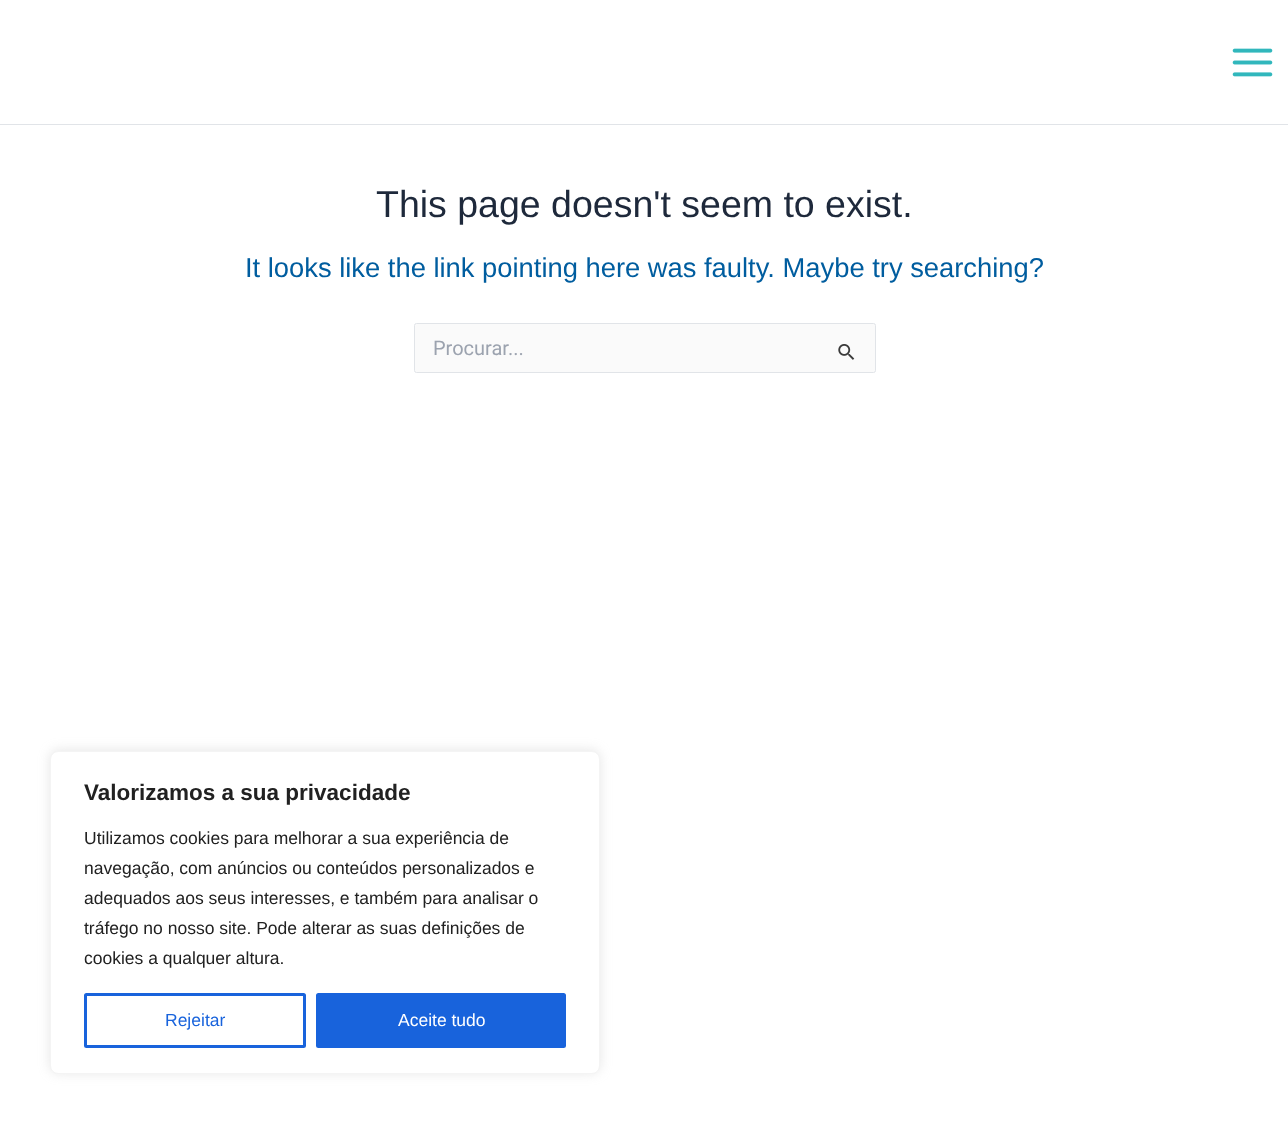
<!DOCTYPE html>
<meta charset="utf-8">
<style>body { margin: 0 } canvas { display: block }</style>
<canvas id="canvas" width="1288" height="1123"></canvas>
<img id="img1" src="img_01.png" hidden>
<img id="img2" src="img_02.png" hidden>
<script>
window.onload = function () {
	const canvas = document.getElementById("canvas");
	const ctx = canvas.getContext("2d");
	ctx.miterLimit = 4;
	ctx.fontKerning = "normal";
	function txt(s, x, y) {
		ctx.fillText(s, x, y);
	}
	function fill(x, y, w, h) {
		ctx.fillRect(x, y, w, h);
	}
	function img(id, x, y, w, h) {
		ctx.drawImage(document.getElementById(id), x, y, w, h);
	}

	ctx.fillStyle = "#FFFFFF";
	fill(0, 0, 1288, 1123);
	ctx.fillStyle = "#E1E4E8";
	fill(0, 124, 1288, 1);
	img("img1", 1232, 48, 41, 29);
	ctx.fillStyle = "#FAFAFA";
	ctx.beginPath();
	ctx.roundRect(414.5, 323.5, 461, 49, 2);
	ctx.fill();
	ctx.strokeStyle = "#E1E4E8";
	ctx.stroke();
	img("img2", 838, 344, 17, 16);
	ctx.fillStyle = "rgba(172, 171, 171, 0.3)";
	ctx.filter = "blur(6px)";
	ctx.beginPath();
	ctx.roundRect(50, 750, 550, 323, 8);
	ctx.fill();
	ctx.filter = "none";
	ctx.fillStyle = "#FFFFFF";
	ctx.beginPath();
	ctx.roundRect(50.5, 751.5, 549, 322, 7.5);
	ctx.fill();
	ctx.strokeStyle = "#F4F4F4";
	ctx.stroke();
	ctx.beginPath();
	ctx.roundRect(85.5, 994.5, 219, 52, 1);
	ctx.strokeStyle = "#1863DC";
	ctx.lineWidth = 3;
	ctx.stroke();
	ctx.fillStyle = "#1863DC";
	ctx.beginPath();
	ctx.roundRect(317.5, 994.5, 247, 52, 1);
	ctx.fill();
	ctx.stroke();
	ctx.font = "37.5px Liberation Sans";
	ctx.fillStyle = "#1E293B";
	txt("This page doesn't seem to exist.", 376, 217);
	ctx.font = "27.35px Liberation Sans";
	ctx.fillStyle = "#005D9F";
	txt("It looks like the link pointing here was faulty. Maybe try searching?", 245, 277);
	ctx.font = "20px Roboto";
	ctx.fillStyle = "#9CA3AF";
	txt("Procurar...", 433, 355);
	ctx.font = "bold 22.5px Liberation Sans";
	ctx.fillStyle = "#212121";
	txt("Valorizamos a sua privacidade", 84, 800);
	ctx.font = "17.5px Liberation Sans";
	txt("Utilizamos cookies para melhorar a sua experiência de", 84, 844);
	txt("navegação, com anúncios ou conteúdos personalizados e", 84, 874);
	txt("adequados aos seus interesses, e também para analisar o", 84, 904);
	txt("tráfego no nosso site. Pode alterar as suas definições de", 84, 934);
	txt("cookies a qualquer altura.", 84, 964);
	ctx.fillStyle = "#1863DC";
	txt("Rejeitar", 165, 1026);
	ctx.fillStyle = "#FFFFFF";
	txt("Aceite tudo", 398, 1026);
};
</script>
